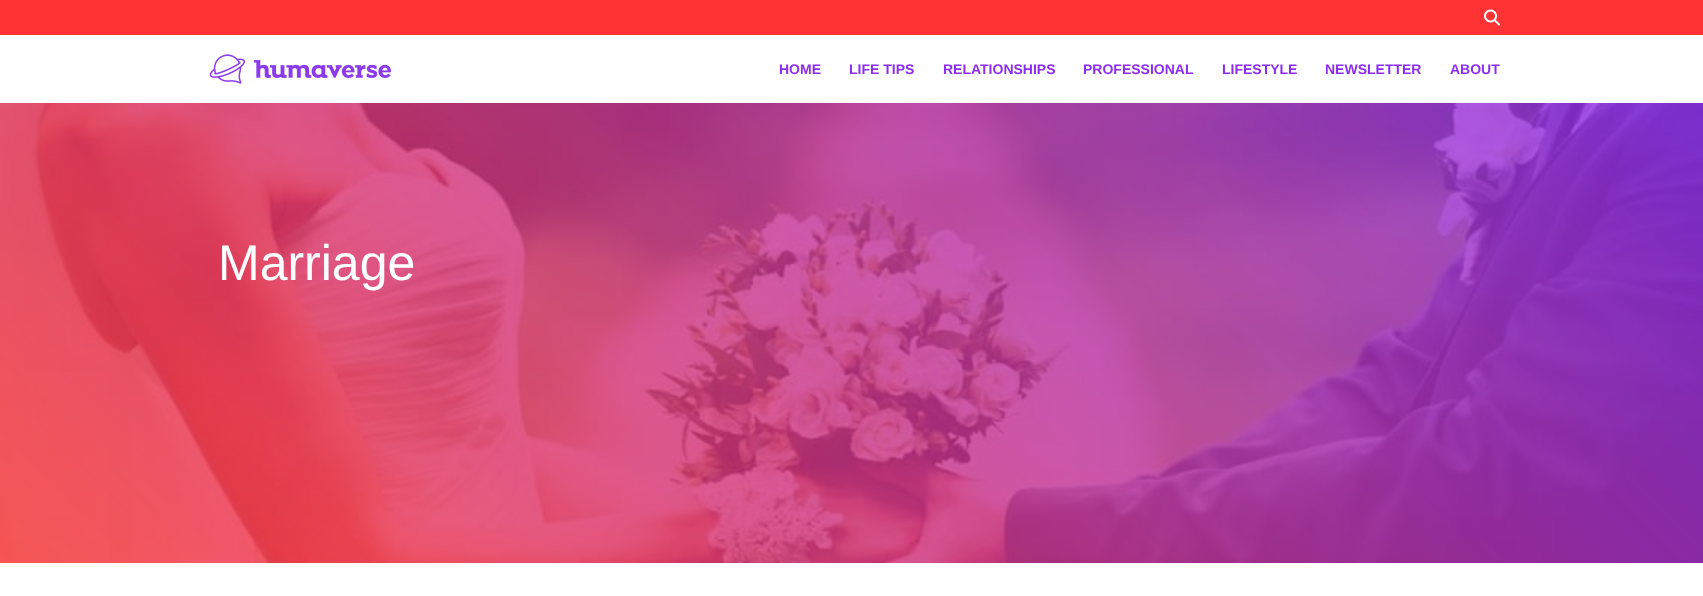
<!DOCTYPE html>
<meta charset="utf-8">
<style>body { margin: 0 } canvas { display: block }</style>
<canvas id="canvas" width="1703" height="596"></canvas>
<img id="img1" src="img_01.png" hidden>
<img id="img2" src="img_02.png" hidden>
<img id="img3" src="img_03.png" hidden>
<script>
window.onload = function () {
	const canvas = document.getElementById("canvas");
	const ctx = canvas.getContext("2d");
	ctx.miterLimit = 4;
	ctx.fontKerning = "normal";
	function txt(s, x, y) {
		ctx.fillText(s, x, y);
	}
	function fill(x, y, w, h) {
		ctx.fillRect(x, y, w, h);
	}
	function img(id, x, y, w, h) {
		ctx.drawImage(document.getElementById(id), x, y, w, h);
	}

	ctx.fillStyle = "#FFFFFF";
	fill(0, 0, 1703, 596);
	ctx.fillStyle = "#FF3333";
	fill(0, 0, 1703, 35);
	img("img1", 1484, 9, 16, 17);
	img("img2", 209, 54, 182, 30);
	img("img3", 0, 103, 1703, 460);
	ctx.font = "bold 14px Liberation Sans";
	ctx.fillStyle = "#8D2DF0";
	txt("HOME", 779, 74);
	txt("LIFE TIPS", 849, 74);
	txt("RELATIONSHIPS", 943, 74);
	txt("PROFESSIONAL", 1083, 74);
	txt("LIFESTYLE", 1222, 74);
	txt("NEWSLETTER", 1325, 74);
	txt("ABOUT", 1450, 74);
	ctx.font = "50px Liberation Sans";
	ctx.fillStyle = "#FFFFFF";
	txt("Marriage", 218, 280);
};
</script>
